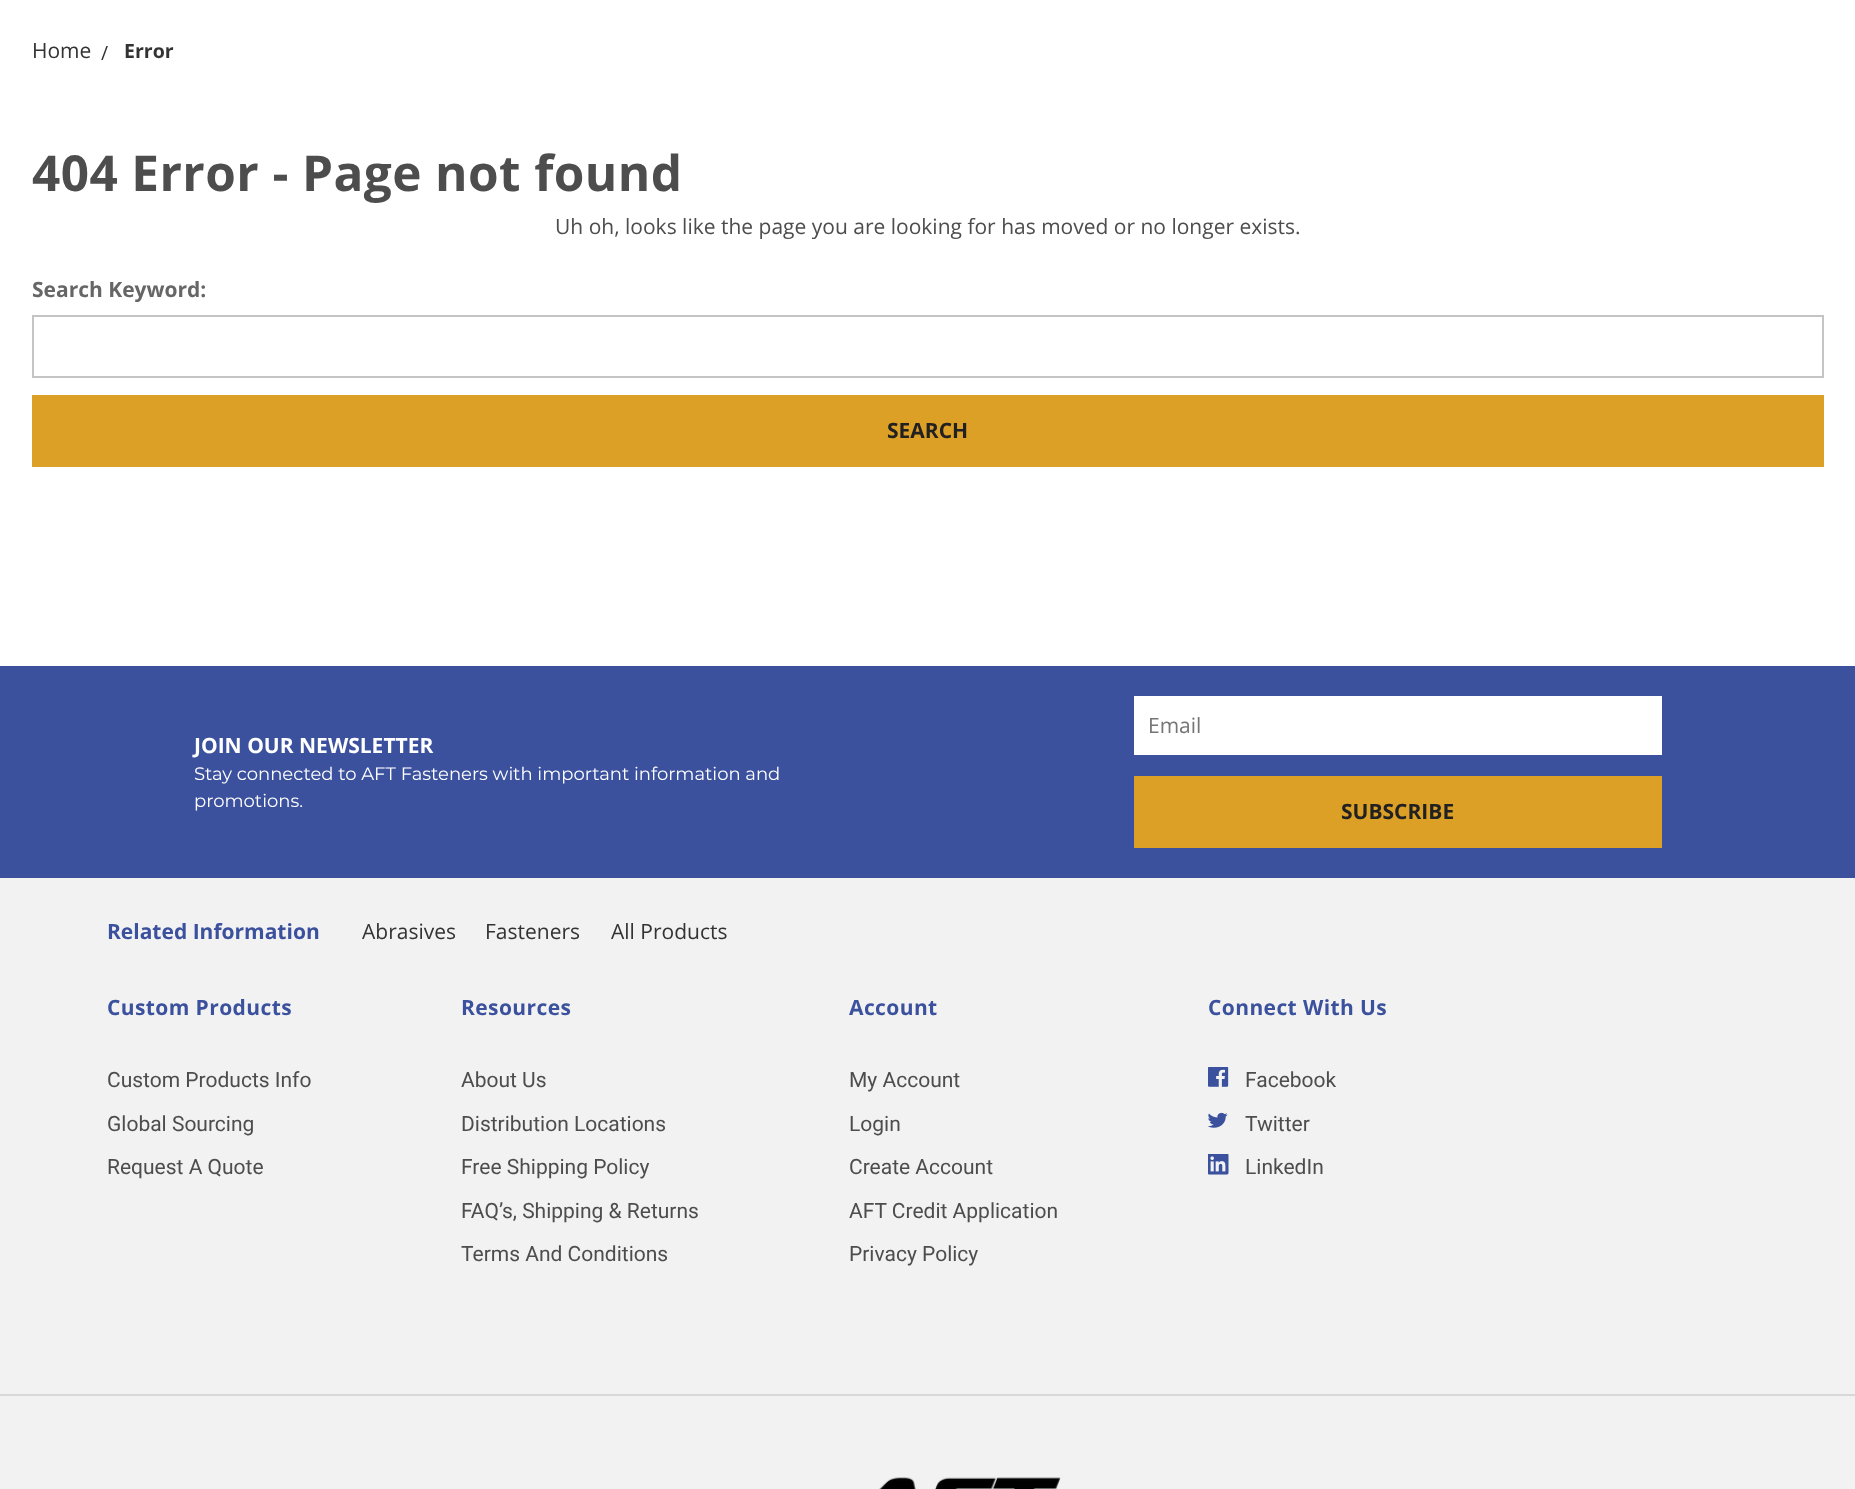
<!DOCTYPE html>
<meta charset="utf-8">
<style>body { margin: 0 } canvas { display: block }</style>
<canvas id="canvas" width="1855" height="1489"></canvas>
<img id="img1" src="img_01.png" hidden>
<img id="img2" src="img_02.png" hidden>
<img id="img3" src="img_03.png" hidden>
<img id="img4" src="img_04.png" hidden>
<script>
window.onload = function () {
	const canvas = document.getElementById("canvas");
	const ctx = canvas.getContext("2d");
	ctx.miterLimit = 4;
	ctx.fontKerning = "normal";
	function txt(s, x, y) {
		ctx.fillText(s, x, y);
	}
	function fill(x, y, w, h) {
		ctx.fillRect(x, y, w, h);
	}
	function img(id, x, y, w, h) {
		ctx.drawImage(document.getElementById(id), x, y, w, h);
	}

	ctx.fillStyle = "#FFFFFF";
	fill(0, 0, 1855, 1489);
	ctx.strokeStyle = "#C4C4C4";
	ctx.lineWidth = 2;
	ctx.strokeRect(33, 316, 1790, 61);
	ctx.fillStyle = "#DDA027";
	fill(32, 395, 1792, 72);
	ctx.fillStyle = "#F2F2F2";
	fill(0, 878, 1855, 611);
	ctx.fillStyle = "#3B519E";
	fill(0, 666, 1855, 212);
	ctx.fillStyle = "#FFFFFF";
	fill(1134, 696, 528, 59);
	ctx.fillStyle = "#DDA027";
	fill(1134, 776, 528, 72);
	img("img1", 1208, 1067, 21, 20);
	img("img2", 1208, 1112, 20, 16);
	img("img3", 1208, 1154, 21, 21);
	ctx.fillStyle = "#D8D8D8";
	fill(0, 1394, 1855, 2);
	img("img4", 879, 1477, 182, 12);
	ctx.fillStyle = "#F5F5F5";
	fill(1853, 1487, 2, 2);
	ctx.font = "21px Open Sans";
	ctx.fillStyle = "#333333";
	txt("Home", 32, 58);
	ctx.font = "19.5px Open Sans";
	txt("/", 101, 60);
	ctx.font = "bold 19.5px Open Sans";
	txt("Error", 124, 58);
	ctx.letterSpacing = "0.4px";
	ctx.font = "bold 49.5px Open Sans";
	ctx.fillStyle = "#4D4D4D";
	txt("404 Error - Page not found", 32, 191);
	ctx.letterSpacing = "0px";
	ctx.font = "21px Open Sans";
	txt("Uh oh, looks like the page you are looking for has moved or no longer exists.", 555, 234);
	ctx.font = "bold 21px Open Sans";
	ctx.fillStyle = "#666666";
	txt("Search Keyword:", 32, 297);
	ctx.fillStyle = "#212121";
	txt("SEARCH", 887, 438);
	ctx.fillStyle = "#FFFFFF";
	txt("JOIN OUR NEWSLETTER", 194, 753);
	ctx.font = "18px Montserrat";
	txt("Stay connected to AFT Fasteners with important information and", 194, 780);
	txt("promotions.", 194, 807);
	ctx.font = "21px Open Sans";
	ctx.fillStyle = "#757575";
	txt("Email", 1148, 733);
	ctx.font = "bold 21px Open Sans";
	ctx.fillStyle = "#212121";
	txt("SUBSCRIBE", 1341, 819);
	ctx.fillStyle = "#3B519E";
	txt("Related Information", 107, 939);
	ctx.font = "21px Open Sans";
	ctx.fillStyle = "#333333";
	txt("Abrasives", 362, 939);
	txt("Fasteners", 485, 939);
	txt("All Products", 611, 939);
	ctx.letterSpacing = "0.4px";
	ctx.font = "bold 21px Open Sans";
	ctx.fillStyle = "#3B519E";
	txt("Custom Products", 107, 1015);
	ctx.letterSpacing = "0px";
	ctx.font = "21px Roboto";
	ctx.fillStyle = "#4D4D4D";
	txt("Custom Products Info", 107, 1087);
	txt("Global Sourcing", 107, 1131);
	txt("Request A Quote", 107, 1174);
	ctx.letterSpacing = "0.4px";
	ctx.font = "bold 21px Open Sans";
	ctx.fillStyle = "#3B519E";
	txt("Resources", 461, 1015);
	ctx.letterSpacing = "0px";
	ctx.font = "21px Roboto";
	ctx.fillStyle = "#4D4D4D";
	txt("About Us", 461, 1087);
	txt("Distribution Locations", 461, 1131);
	txt("Free Shipping Policy", 461, 1174);
	txt("FAQ’s, Shipping & Returns", 461, 1218);
	txt("Terms And Conditions", 461, 1261);
	ctx.letterSpacing = "0.4px";
	ctx.font = "bold 21px Open Sans";
	ctx.fillStyle = "#3B519E";
	txt("Account", 849, 1015);
	ctx.letterSpacing = "0px";
	ctx.font = "21px Roboto";
	ctx.fillStyle = "#4D4D4D";
	txt("My Account", 849, 1087);
	txt("Login", 849, 1131);
	txt("Create Account", 849, 1174);
	txt("AFT Credit Application", 849, 1218);
	txt("Privacy Policy", 849, 1261);
	ctx.letterSpacing = "0.4px";
	ctx.font = "bold 21px Open Sans";
	ctx.fillStyle = "#3B519E";
	txt("Connect With Us", 1208, 1015);
	ctx.letterSpacing = "0px";
	ctx.font = "21px Roboto";
	ctx.fillStyle = "#4D4D4D";
	txt("Facebook", 1245, 1087);
	txt("Twitter", 1245, 1131);
	txt("LinkedIn", 1245, 1174);
};
</script>
